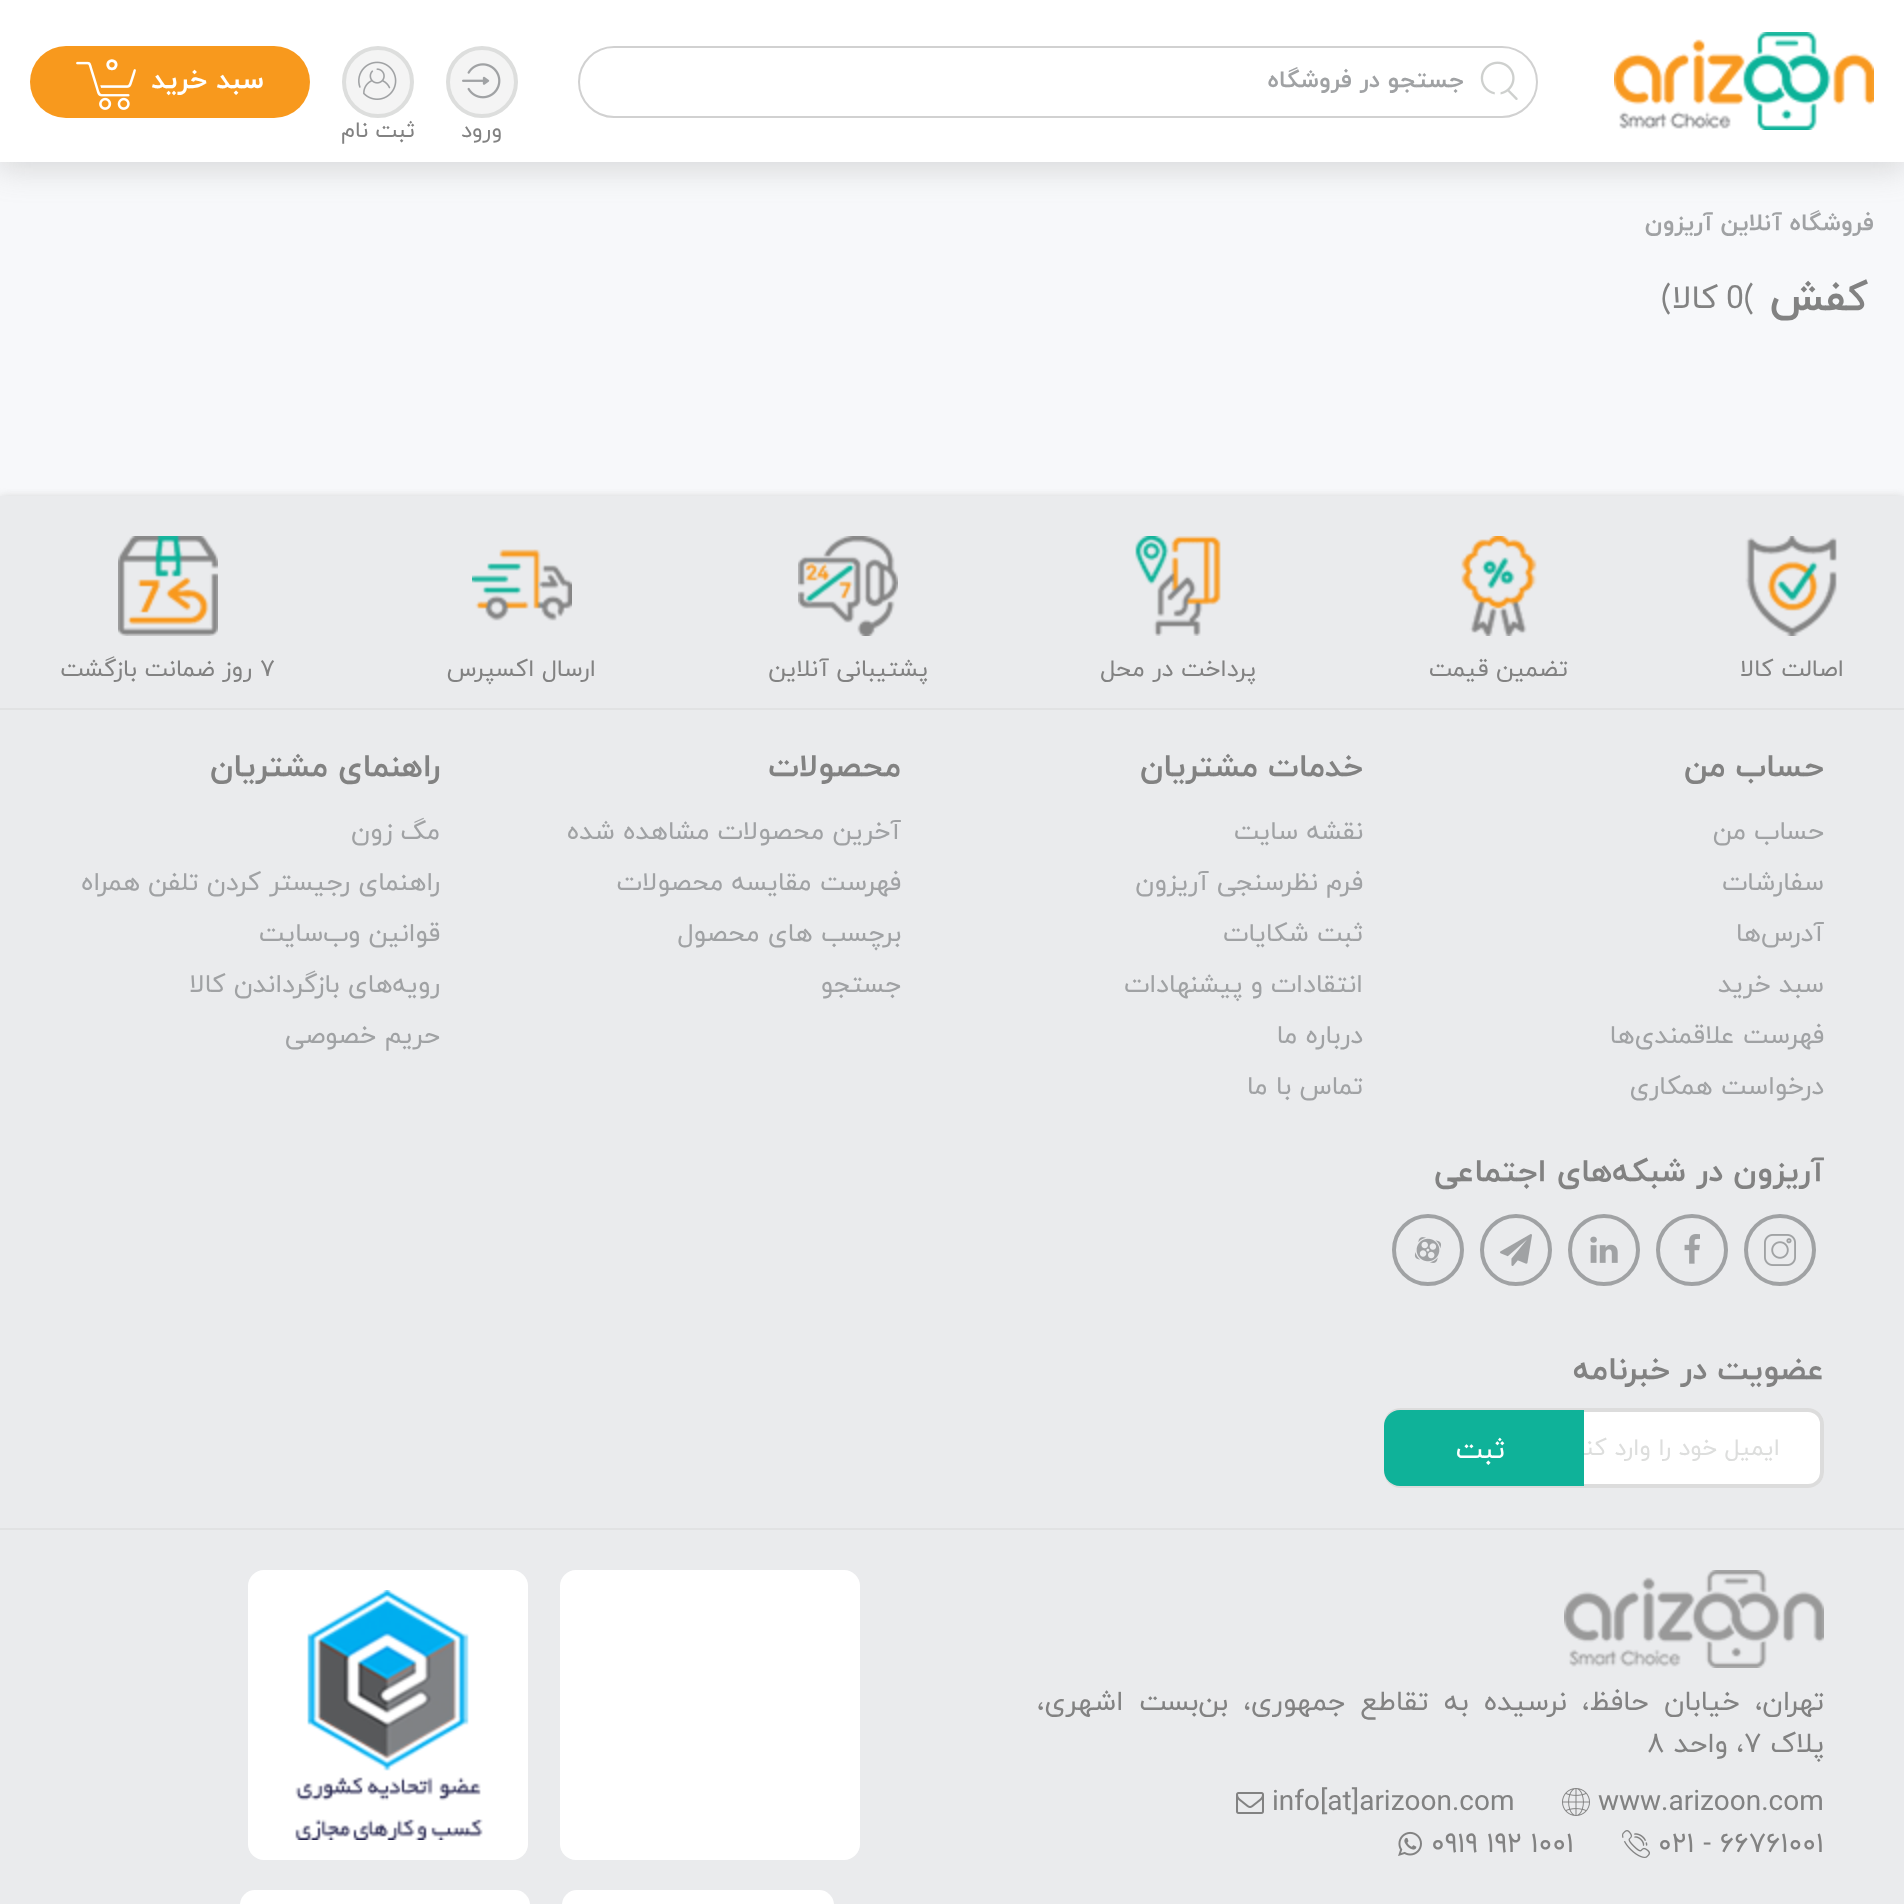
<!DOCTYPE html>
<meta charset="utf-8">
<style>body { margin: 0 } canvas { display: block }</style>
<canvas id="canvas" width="1904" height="1904"></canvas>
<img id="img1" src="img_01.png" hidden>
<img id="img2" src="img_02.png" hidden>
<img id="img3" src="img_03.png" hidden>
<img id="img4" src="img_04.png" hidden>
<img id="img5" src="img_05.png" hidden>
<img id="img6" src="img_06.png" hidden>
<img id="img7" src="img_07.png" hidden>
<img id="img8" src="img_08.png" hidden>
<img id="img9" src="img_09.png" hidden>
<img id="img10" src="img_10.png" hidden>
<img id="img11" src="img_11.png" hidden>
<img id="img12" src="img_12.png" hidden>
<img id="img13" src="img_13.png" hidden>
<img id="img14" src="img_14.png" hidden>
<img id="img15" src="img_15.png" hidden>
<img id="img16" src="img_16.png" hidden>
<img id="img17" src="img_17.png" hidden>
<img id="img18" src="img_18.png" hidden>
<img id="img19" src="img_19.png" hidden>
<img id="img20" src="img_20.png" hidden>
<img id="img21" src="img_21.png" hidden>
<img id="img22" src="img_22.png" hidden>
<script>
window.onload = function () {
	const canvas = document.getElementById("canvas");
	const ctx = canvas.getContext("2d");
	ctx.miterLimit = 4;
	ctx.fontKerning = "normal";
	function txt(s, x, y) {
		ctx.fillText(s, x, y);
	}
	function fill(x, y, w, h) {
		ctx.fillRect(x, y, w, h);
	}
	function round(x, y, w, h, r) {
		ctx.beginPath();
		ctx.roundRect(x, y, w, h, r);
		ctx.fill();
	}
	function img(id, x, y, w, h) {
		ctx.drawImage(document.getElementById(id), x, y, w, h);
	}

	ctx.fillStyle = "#F7F8FA";
	fill(0, 0, 1904, 1904);
	ctx.fillStyle = "rgba(135, 135, 135, 0.3)";
	ctx.filter = "blur(16px)";
	ctx.beginPath();
	ctx.rect(-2, 2, 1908, 166);
	ctx.fill();
	ctx.filter = "none";
	ctx.fillStyle = "#FFFFFF";
	fill(0, 0, 1904, 162);
	img("img1", 1614, 32, 260, 98);
	ctx.beginPath();
	ctx.roundRect(579, 47, 958, 70, 35);
	ctx.strokeStyle = "#D1D1D1";
	ctx.lineWidth = 2;
	ctx.stroke();
	img("img2", 1480, 61, 38, 39);
	ctx.fillStyle = "#F8991D";
	round(30, 46, 280, 72, 36);
	img("img3", 76, 61, 60, 49);
	ctx.fillStyle = "#F4F4F4";
	ctx.beginPath();
	ctx.arc(482, 82, 34, 0, Math.PI * 2);
	ctx.fill();
	ctx.strokeStyle = "#DDDEDD";
	ctx.lineWidth = 4;
	ctx.stroke();
	img("img4", 462, 63, 39, 36);
	ctx.beginPath();
	ctx.arc(378, 82, 34, 0, Math.PI * 2);
	ctx.fill();
	ctx.stroke();
	img("img5", 358, 61, 39, 39);
	ctx.fillStyle = "#C6C6C6";
	ctx.filter = "blur(5px)";
	ctx.beginPath();
	ctx.rect(0, 498, 1904, 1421);
	ctx.fill();
	ctx.filter = "none";
	ctx.fillStyle = "#EAEBED";
	fill(0, 496, 1904, 1408);
	ctx.fillStyle = "#E1E2E3";
	fill(0, 708, 1904, 2);
	img("img6", 1745, 536, 92, 100);
	img("img7", 1461, 536, 76, 100);
	img("img8", 1135, 536, 86, 100);
	img("img9", 798, 536, 100, 100);
	img("img10", 472, 549, 100, 72);
	img("img11", 118, 536, 100, 100);
	fill(0, 1528, 1904, 2);
	ctx.beginPath();
	ctx.arc(1780, 1250, 34, 0, Math.PI * 2);
	ctx.strokeStyle = "#A0A2A4";
	ctx.stroke();
	img("img12", 1764, 1234, 32, 32);
	ctx.beginPath();
	ctx.arc(1692, 1250, 34, 0, Math.PI * 2);
	ctx.stroke();
	img("img13", 1684, 1234, 16, 30);
	ctx.beginPath();
	ctx.arc(1604, 1250, 34, 0, Math.PI * 2);
	ctx.stroke();
	img("img14", 1590, 1236, 28, 27);
	ctx.beginPath();
	ctx.arc(1516, 1250, 34, 0, Math.PI * 2);
	ctx.stroke();
	img("img15", 1500, 1234, 32, 32);
	ctx.beginPath();
	ctx.arc(1428, 1250, 34, 0, Math.PI * 2);
	ctx.stroke();
	img("img16", 1414, 1237, 27, 26);
	ctx.fillStyle = "#FFFFFF";
	round(1384, 1408, 440, 80, 16);
	ctx.beginPath();
	ctx.roundRect(1386, 1410, 436, 76, 14);
	ctx.strokeStyle = "rgba(200, 200, 200, 0.63)";
	ctx.stroke();
	img("img17", 1564, 1570, 260, 98);
	img("img18", 1562, 1788, 28, 28);
	img("img19", 1236, 1792, 28, 22);
	img("img20", 1622, 1830, 28, 28);
	img("img21", 1398, 1831, 24, 25);
	round(560, 1570, 300, 290, 16);
	round(248, 1570, 280, 290, 16);
	img("img22", 295, 1590, 188, 250);
	round(562, 1890, 272, 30, 16);
	round(240, 1890, 290, 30, 16);
	ctx.direction = "rtl";
	ctx.font = "bold 24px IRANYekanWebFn";
	ctx.fillStyle = "#A0A2A4";
	txt("جستجو در فروشگاه", 1464, 87);
	ctx.direction = "ltr";
	ctx.font = "32px IRANYekanWebFn";
	ctx.fillStyle = "#FFFFFF";
	txt("0", 104, 73);
	ctx.direction = "rtl";
	ctx.font = "bold 28px IRANYekanWebFn";
	txt("سبد خرید", 264, 88);
	ctx.font = "22.5px IRANYekanWebFn";
	ctx.fillStyle = "#828282";
	txt("ورود", 502, 137);
	txt("ثبت نام", 415, 137);
	ctx.font = "bold 24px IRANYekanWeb";
	ctx.fillStyle = "#A0A2A4";
	txt("فروشگاه آنلاین آریزون", 1874, 230);
	ctx.font = "bold 42px IRANYekanWeb";
	ctx.fillStyle = "#828282";
	txt("کفش", 1868, 310);
	ctx.direction = "ltr";
	ctx.font = "33px IRANYekanWeb";
	txt("(", 1744, 308);
	ctx.font = "32px IRANYekanWeb";
	txt("0", 1726, 308);
	ctx.direction = "rtl";
	ctx.font = "33px IRANYekanWeb";
	txt("کالا)", 1718, 308);
	ctx.font = "24px IRANYekanWebFn";
	txt("اصالت کالا", 1844, 676);
	txt("تضمین قیمت", 1568, 676);
	txt("پرداخت در محل", 1256, 676);
	txt("پشتیبانی آنلاین", 928, 676);
	txt("ارسال اکسپرس", 596, 676);
	ctx.direction = "ltr";
	txt("۷", 260, 676);
	ctx.direction = "rtl";
	txt("روز ضمانت بازگشت", 252, 676);
	ctx.font = "bold 32px IRANYekanWeb";
	txt("حساب من", 1824, 776);
	ctx.font = "26px IRANYekanWebFn";
	ctx.fillStyle = "#A0A2A4";
	txt("حساب من", 1824, 839);
	txt("سفارشات", 1824, 890);
	txt("آدرس‌ها", 1824, 941);
	txt("سبد خرید", 1824, 992);
	txt("فهرست علاقمندی‌ها", 1824, 1043);
	txt("درخواست همکاری", 1824, 1094);
	ctx.font = "bold 32px IRANYekanWeb";
	ctx.fillStyle = "#828282";
	txt("خدمات مشتریان", 1363, 776);
	ctx.font = "26px IRANYekanWebFn";
	ctx.fillStyle = "#A0A2A4";
	txt("نقشه سایت", 1363, 839);
	txt("فرم نظرسنجی آریزون", 1363, 890);
	txt("ثبت شکایات", 1363, 941);
	txt("انتقادات و پیشنهادات", 1363, 992);
	txt("درباره ما", 1363, 1043);
	txt("تماس با ما", 1363, 1094);
	ctx.font = "bold 32px IRANYekanWeb";
	ctx.fillStyle = "#828282";
	txt("محصولات", 901, 776);
	ctx.font = "26px IRANYekanWebFn";
	ctx.fillStyle = "#A0A2A4";
	txt("آخرین محصولات مشاهده شده", 901, 839);
	txt("فهرست مقایسه محصولات", 901, 890);
	txt("برچسب های محصول", 901, 941);
	txt("جستجو", 901, 992);
	ctx.font = "bold 32px IRANYekanWeb";
	ctx.fillStyle = "#828282";
	txt("راهنمای مشتریان", 440, 776);
	ctx.font = "26px IRANYekanWebFn";
	ctx.fillStyle = "#A0A2A4";
	txt("مگ‌ زون", 440, 839);
	txt("راهنمای رجیستر کردن تلفن همراه", 440, 890);
	txt("قوانین وب‌سایت", 440, 941);
	txt("رویه‌‌های بازگرداندن کالا", 440, 992);
	txt("حریم خصوصی", 440, 1043);
	ctx.font = "bold 32px IRANYekanWeb";
	ctx.fillStyle = "#828282";
	txt("آریزون در شبکه‌های اجتماعی", 1824, 1181);
	txt("عضویت در خبرنامه", 1824, 1379);
	ctx.font = "24px IRANYekanWebFn";
	ctx.fillStyle = "#DDDEDD";
	txt("ایمیل خود را وارد کنید...", 1780, 1455);
	ctx.fillStyle = "#0FB299";
	ctx.beginPath();
	ctx.roundRect(1384, 1410, 200, 76, [16, 0, 0, 16]);
	ctx.fill();
	ctx.font = "28px IRANYekanWebFn";
	ctx.fillStyle = "#FFFFFF";
	txt("ثبت", 1505, 1458);
	ctx.wordSpacing = "6.5px";
	ctx.fillStyle = "#828282";
	txt("تهران، خیابان حافظ، نرسیده به تقاطع جمهوری، بن‌بست اشهری،", 1824, 1710);
	ctx.wordSpacing = "0px";
	txt("پلاک", 1824, 1752);
	ctx.direction = "ltr";
	txt("7", 1744, 1752);
	ctx.direction = "rtl";
	txt("، واحد", 1744, 1752);
	ctx.direction = "ltr";
	txt("8", 1647, 1752);
	txt("www.arizoon.com", 1598, 1810);
	txt("info[at]arizoon.com", 1272, 1810);
	txt("۰۲۱ - 66761001", 1658, 1852);
	txt("0919 192 1001", 1431, 1852);
};
</script>
